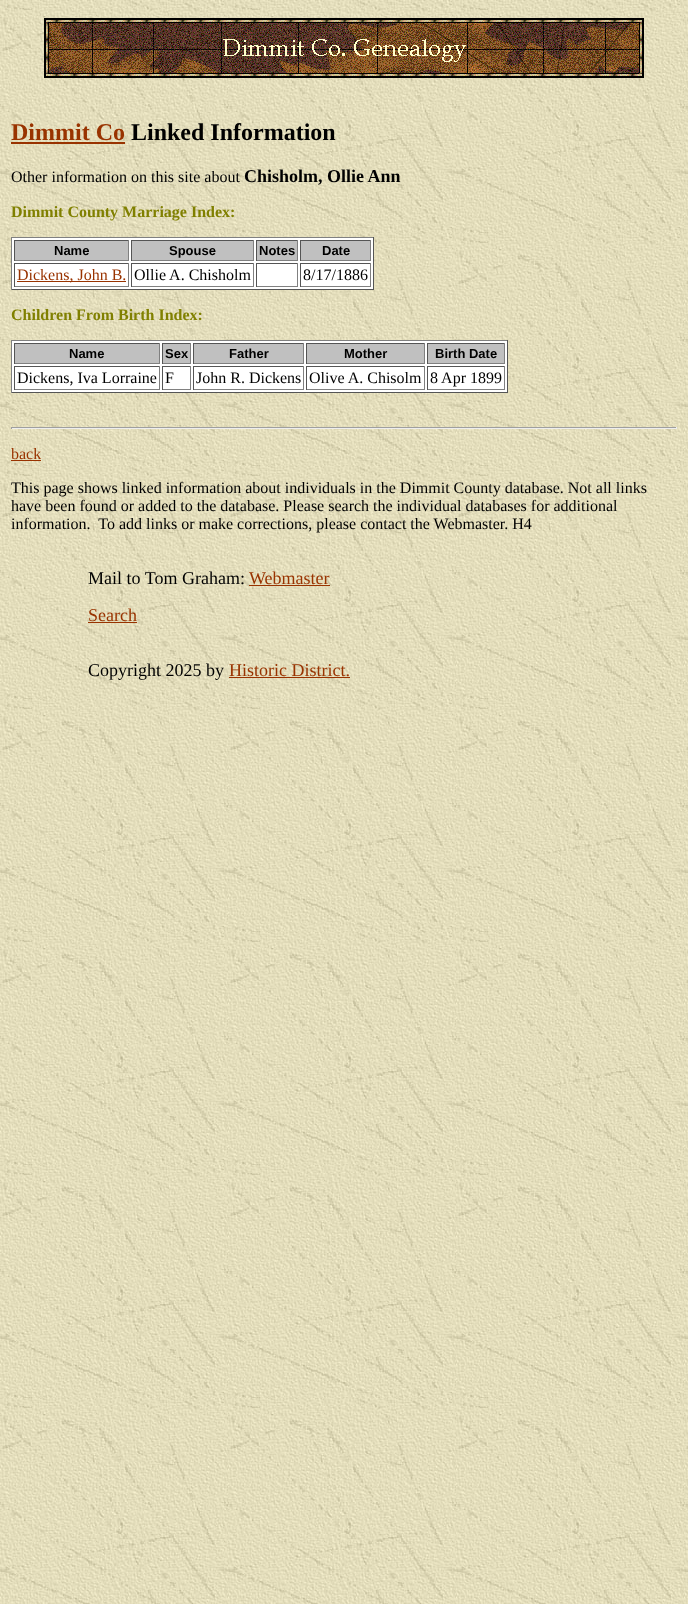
<!DOCTYPE html>
<meta charset="utf-8">
<style>body { margin: 0 } canvas { display: block }</style>
<canvas id="canvas" width="688" height="1604"></canvas>
<img id="img1" src="img_01.png" hidden>
<img id="img2" src="img_02.png" hidden>
<script>
window.onload = function () {
	const canvas = document.getElementById("canvas");
	const ctx = canvas.getContext("2d");
	ctx.miterLimit = 4;
	ctx.fontKerning = "normal";
	function txt(s, x, y) {
		ctx.fillText(s, x, y);
	}
	function fill(x, y, w, h) {
		ctx.fillRect(x, y, w, h);
	}
	function img(id, x, y, w, h) {
		ctx.drawImage(document.getElementById(id), x, y, w, h);
	}

	ctx.fillStyle = "#FFFFFF";
	fill(0, 0, 688, 1604);
	img("img1", 0, 0, 688, 1604);
	img("img2", 44, 18, 600, 60);
	ctx.fillStyle = "#993300";
	fill(11, 142, 114, 2);
	ctx.fillStyle = "#FFFFFF";
	fill(12, 238, 361, 51);
	ctx.fillStyle = "#808080";
	fill(11, 237, 363, 1);
	ctx.fillStyle = "#555555";
	fill(373, 237, 1, 53);
	fill(11, 289, 363, 1);
	ctx.fillStyle = "#808080";
	fill(11, 237, 1, 53);
	ctx.fillStyle = "#C0C0C0";
	fill(15, 241, 113, 19);
	ctx.fillStyle = "#555555";
	fill(14, 240, 115, 1);
	ctx.fillStyle = "#808080";
	fill(128, 240, 1, 21);
	fill(14, 260, 115, 1);
	ctx.fillStyle = "#555555";
	fill(14, 240, 1, 21);
	ctx.fillStyle = "#C0C0C0";
	fill(132, 241, 121, 19);
	ctx.fillStyle = "#555555";
	fill(131, 240, 123, 1);
	ctx.fillStyle = "#808080";
	fill(253, 240, 1, 21);
	fill(131, 260, 123, 1);
	ctx.fillStyle = "#555555";
	fill(131, 240, 1, 21);
	ctx.fillStyle = "#C0C0C0";
	fill(257, 241, 40, 19);
	ctx.fillStyle = "#555555";
	fill(256, 240, 42, 1);
	ctx.fillStyle = "#808080";
	fill(297, 240, 1, 21);
	fill(256, 260, 42, 1);
	ctx.fillStyle = "#555555";
	fill(256, 240, 1, 21);
	ctx.fillStyle = "#C0C0C0";
	fill(301, 241, 69, 19);
	ctx.fillStyle = "#555555";
	fill(300, 240, 71, 1);
	ctx.fillStyle = "#808080";
	fill(370, 240, 1, 21);
	fill(300, 260, 71, 1);
	ctx.fillStyle = "#555555";
	fill(300, 240, 1, 21);
	fill(14, 263, 115, 1);
	ctx.fillStyle = "#808080";
	fill(128, 263, 1, 24);
	fill(14, 286, 115, 1);
	ctx.fillStyle = "#555555";
	fill(14, 263, 1, 24);
	ctx.fillStyle = "#993300";
	fill(17, 281, 109, 1);
	ctx.fillStyle = "#555555";
	fill(131, 263, 123, 1);
	ctx.fillStyle = "#808080";
	fill(253, 263, 1, 24);
	fill(131, 286, 123, 1);
	ctx.fillStyle = "#555555";
	fill(131, 263, 1, 24);
	fill(256, 263, 42, 1);
	ctx.fillStyle = "#808080";
	fill(297, 263, 1, 24);
	fill(256, 286, 42, 1);
	ctx.fillStyle = "#555555";
	fill(256, 263, 1, 24);
	fill(300, 263, 71, 1);
	ctx.fillStyle = "#808080";
	fill(370, 263, 1, 24);
	fill(300, 286, 71, 1);
	ctx.fillStyle = "#555555";
	fill(300, 263, 1, 24);
	ctx.fillStyle = "#FFFFFF";
	fill(12, 341, 495, 51);
	ctx.fillStyle = "#808080";
	fill(11, 340, 497, 1);
	ctx.fillStyle = "#555555";
	fill(507, 340, 1, 53);
	fill(11, 392, 497, 1);
	ctx.fillStyle = "#808080";
	fill(11, 340, 1, 53);
	ctx.fillStyle = "#C0C0C0";
	fill(15, 344, 144, 19);
	ctx.fillStyle = "#555555";
	fill(14, 343, 146, 1);
	ctx.fillStyle = "#808080";
	fill(159, 343, 1, 21);
	fill(14, 363, 146, 1);
	ctx.fillStyle = "#555555";
	fill(14, 343, 1, 21);
	ctx.fillStyle = "#C0C0C0";
	fill(163, 344, 27, 19);
	ctx.fillStyle = "#555555";
	fill(162, 343, 29, 1);
	ctx.fillStyle = "#808080";
	fill(190, 343, 1, 21);
	fill(162, 363, 29, 1);
	ctx.fillStyle = "#555555";
	fill(162, 343, 1, 21);
	ctx.fillStyle = "#C0C0C0";
	fill(194, 344, 109, 19);
	ctx.fillStyle = "#555555";
	fill(193, 343, 111, 1);
	ctx.fillStyle = "#808080";
	fill(303, 343, 1, 21);
	fill(193, 363, 111, 1);
	ctx.fillStyle = "#555555";
	fill(193, 343, 1, 21);
	ctx.fillStyle = "#C0C0C0";
	fill(307, 344, 117, 19);
	ctx.fillStyle = "#555555";
	fill(306, 343, 119, 1);
	ctx.fillStyle = "#808080";
	fill(424, 343, 1, 21);
	fill(306, 363, 119, 1);
	ctx.fillStyle = "#555555";
	fill(306, 343, 1, 21);
	ctx.fillStyle = "#C0C0C0";
	fill(428, 344, 76, 19);
	ctx.fillStyle = "#555555";
	fill(427, 343, 78, 1);
	ctx.fillStyle = "#808080";
	fill(504, 343, 1, 21);
	fill(427, 363, 78, 1);
	ctx.fillStyle = "#555555";
	fill(427, 343, 1, 21);
	fill(14, 366, 146, 1);
	ctx.fillStyle = "#808080";
	fill(159, 366, 1, 24);
	fill(14, 389, 146, 1);
	ctx.fillStyle = "#555555";
	fill(14, 366, 1, 24);
	fill(162, 366, 29, 1);
	ctx.fillStyle = "#808080";
	fill(190, 366, 1, 24);
	fill(162, 389, 29, 1);
	ctx.fillStyle = "#555555";
	fill(162, 366, 1, 24);
	fill(193, 366, 111, 1);
	ctx.fillStyle = "#808080";
	fill(303, 366, 1, 24);
	fill(193, 389, 111, 1);
	ctx.fillStyle = "#555555";
	fill(193, 366, 1, 24);
	fill(306, 366, 119, 1);
	ctx.fillStyle = "#808080";
	fill(424, 366, 1, 24);
	fill(306, 389, 119, 1);
	ctx.fillStyle = "#555555";
	fill(306, 366, 1, 24);
	fill(427, 366, 78, 1);
	ctx.fillStyle = "#808080";
	fill(504, 366, 1, 24);
	fill(427, 389, 78, 1);
	ctx.fillStyle = "#555555";
	fill(427, 366, 1, 24);
	ctx.fillStyle = "#9F9F9F";
	fill(11, 427, 666, 1);
	ctx.fillStyle = "#EEEEEE";
	fill(676, 427, 1, 2);
	fill(11, 428, 666, 1);
	ctx.fillStyle = "#9F9F9F";
	fill(11, 427, 1, 2);
	ctx.fillStyle = "#993300";
	fill(11, 460, 30, 1);
	fill(249, 585, 81, 1);
	fill(88, 622, 49, 1);
	fill(229, 677, 121, 1);
	ctx.font = "bold 24px Liberation Serif";
	txt("Dimmit Co", 11, 140);
	ctx.fillStyle = "#000000";
	txt("Linked Information", 131, 140);
	ctx.font = "16px Liberation Serif";
	txt("Other information on this site about", 11, 182);
	ctx.font = "bold 18px Liberation Serif";
	txt("Chisholm, Ollie Ann", 244, 182);
	ctx.font = "bold 16px Liberation Serif";
	ctx.fillStyle = "#808000";
	txt("Dimmit County Marriage Index:", 11, 217);
	ctx.font = "bold 13px Liberation Sans";
	ctx.fillStyle = "#000000";
	txt("Name", 54, 255);
	txt("Spouse", 169, 255);
	txt("Notes", 259, 255);
	txt("Date", 322, 255);
	ctx.font = "16px Liberation Serif";
	ctx.fillStyle = "#993300";
	txt("Dickens, John B.", 17, 280);
	ctx.fillStyle = "#000000";
	txt("Ollie A. Chisholm", 134, 280);
	txt("8/17/1886", 303, 280);
	ctx.font = "bold 16px Liberation Serif";
	ctx.fillStyle = "#808000";
	txt("Children From Birth Index:", 11, 320);
	ctx.font = "bold 13px Liberation Sans";
	ctx.fillStyle = "#000000";
	txt("Name", 69, 358);
	txt("Sex", 165, 358);
	txt("Father", 229, 358);
	txt("Mother", 344, 358);
	txt("Birth Date", 435, 358);
	ctx.font = "16px Liberation Serif";
	txt("Dickens, Iva Lorraine", 17, 383);
	txt("F", 165, 383);
	txt("John R. Dickens", 196, 383);
	txt("Olive A. Chisolm", 309, 383);
	txt("8 Apr 1899", 430, 383);
	ctx.fillStyle = "#993300";
	txt("back", 11, 459);
	ctx.fillStyle = "#000000";
	txt("This page shows linked information about individuals in the Dimmit County database. Not all links", 11, 493);
	txt("have been found or added to the database. Please search the individual databases for additional", 11, 511);
	txt("information.  To add links or make corrections, please contact the Webmaster. H4", 11, 529);
	ctx.font = "18px Liberation Serif";
	txt("Mail to Tom Graham:", 88, 584);
	ctx.fillStyle = "#993300";
	txt("Webmaster", 249, 584);
	txt("Search", 88, 621);
	ctx.fillStyle = "#000000";
	txt("Copyright 2025 by", 88, 676);
	ctx.fillStyle = "#993300";
	txt("Historic District.", 229, 676);
};
</script>
